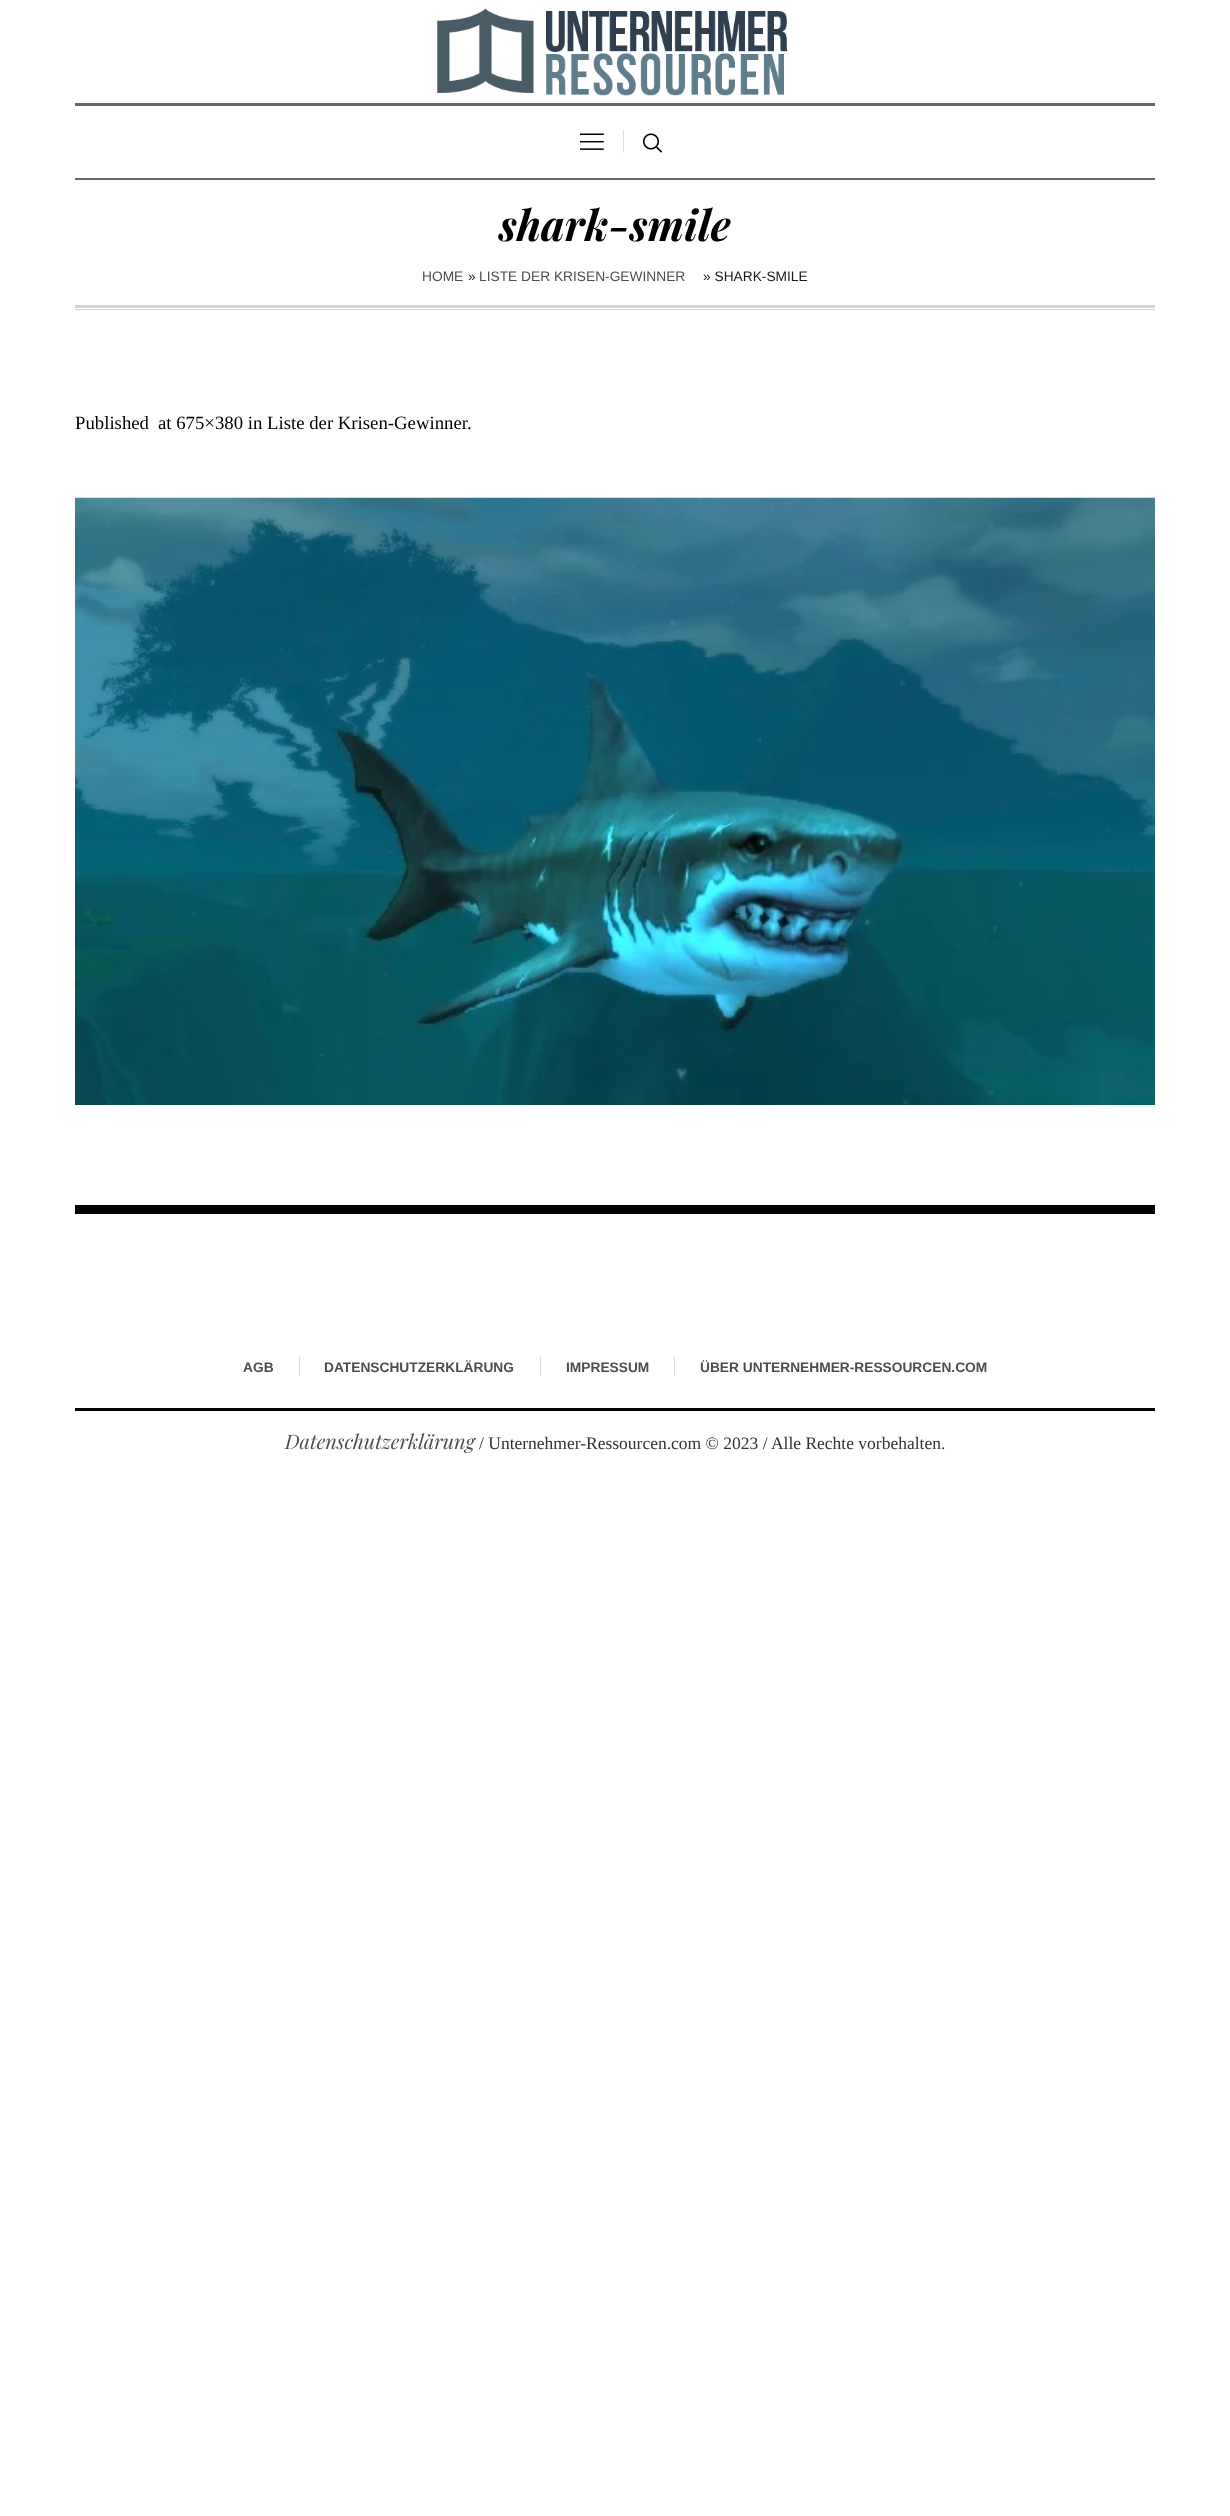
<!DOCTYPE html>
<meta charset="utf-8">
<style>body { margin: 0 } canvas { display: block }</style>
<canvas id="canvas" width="1230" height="2516"></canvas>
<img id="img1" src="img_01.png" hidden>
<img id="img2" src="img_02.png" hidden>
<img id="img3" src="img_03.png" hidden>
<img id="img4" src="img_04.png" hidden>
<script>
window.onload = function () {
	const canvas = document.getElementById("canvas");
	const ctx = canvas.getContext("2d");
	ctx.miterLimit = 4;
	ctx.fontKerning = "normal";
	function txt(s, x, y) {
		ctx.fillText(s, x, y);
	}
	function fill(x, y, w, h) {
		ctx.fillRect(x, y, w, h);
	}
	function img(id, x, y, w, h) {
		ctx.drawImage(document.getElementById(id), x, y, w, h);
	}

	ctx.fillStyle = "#FFFFFF";
	fill(0, 0, 1230, 2516);
	img("img1", 437, 8, 351, 88);
	ctx.fillStyle = "#666666";
	fill(75, 103, 1080, 3);
	fill(75, 178, 1080, 2);
	img("img2", 580, 133, 24, 17);
	ctx.fillStyle = "#DFDFDF";
	fill(623, 130, 1, 23);
	img("img3", 642, 133, 20, 20);
	ctx.fillStyle = "#D4D4D4";
	fill(75, 305, 1080, 3);
	fill(75, 309, 1080, 1);
	img("img4", 75, 497, 1080, 608);
	ctx.fillStyle = "#000000";
	fill(75, 1205, 1080, 9);
	ctx.fillStyle = "#DBDBDB";
	fill(299, 1356, 1, 20);
	fill(540, 1356, 1, 20);
	fill(674, 1356, 1, 20);
	ctx.fillStyle = "#000000";
	fill(75, 1408, 1080, 3);
	ctx.font = "italic bold 42.5px Playfair Display";
	txt("shark-smile", 499, 241);
	ctx.font = "13.75px Liberation Sans";
	ctx.fillStyle = "#4D4D4D";
	txt("HOME", 422, 281);
	ctx.fillStyle = "#1A1A1A";
	txt("»", 468, 281);
	ctx.fillStyle = "#4D4D4D";
	txt("LISTE DER KRISEN-GEWINNER￼", 479, 281);
	ctx.fillStyle = "#1A1A1A";
	txt("» SHARK-SMILE", 703, 281);
	ctx.font = "18.75px Liberation Serif";
	ctx.fillStyle = "#000000";
	txt("Published", 75, 429);
	txt("at 675×380 in Liste der Krisen-Gewinner￼.", 158, 429);
	ctx.font = "bold 13.75px Liberation Sans";
	ctx.fillStyle = "#4D4D4D";
	txt("AGB", 243, 1372);
	txt("DATENSCHUTZERKLÄRUNG", 324, 1372);
	txt("IMPRESSUM", 566, 1372);
	txt("ÜBER UNTERNEHMER-RESSOURCEN.COM", 700, 1372);
	ctx.font = "italic 20px Playfair Display";
	txt("Datenschutzerklärung", 285, 1449);
	ctx.font = "17.5px Liberation Serif";
	ctx.fillStyle = "#333333";
	txt("/ Unternehmer-Ressourcen.com © 2023 / Alle Rechte vorbehalten.", 479, 1449);
};
</script>
